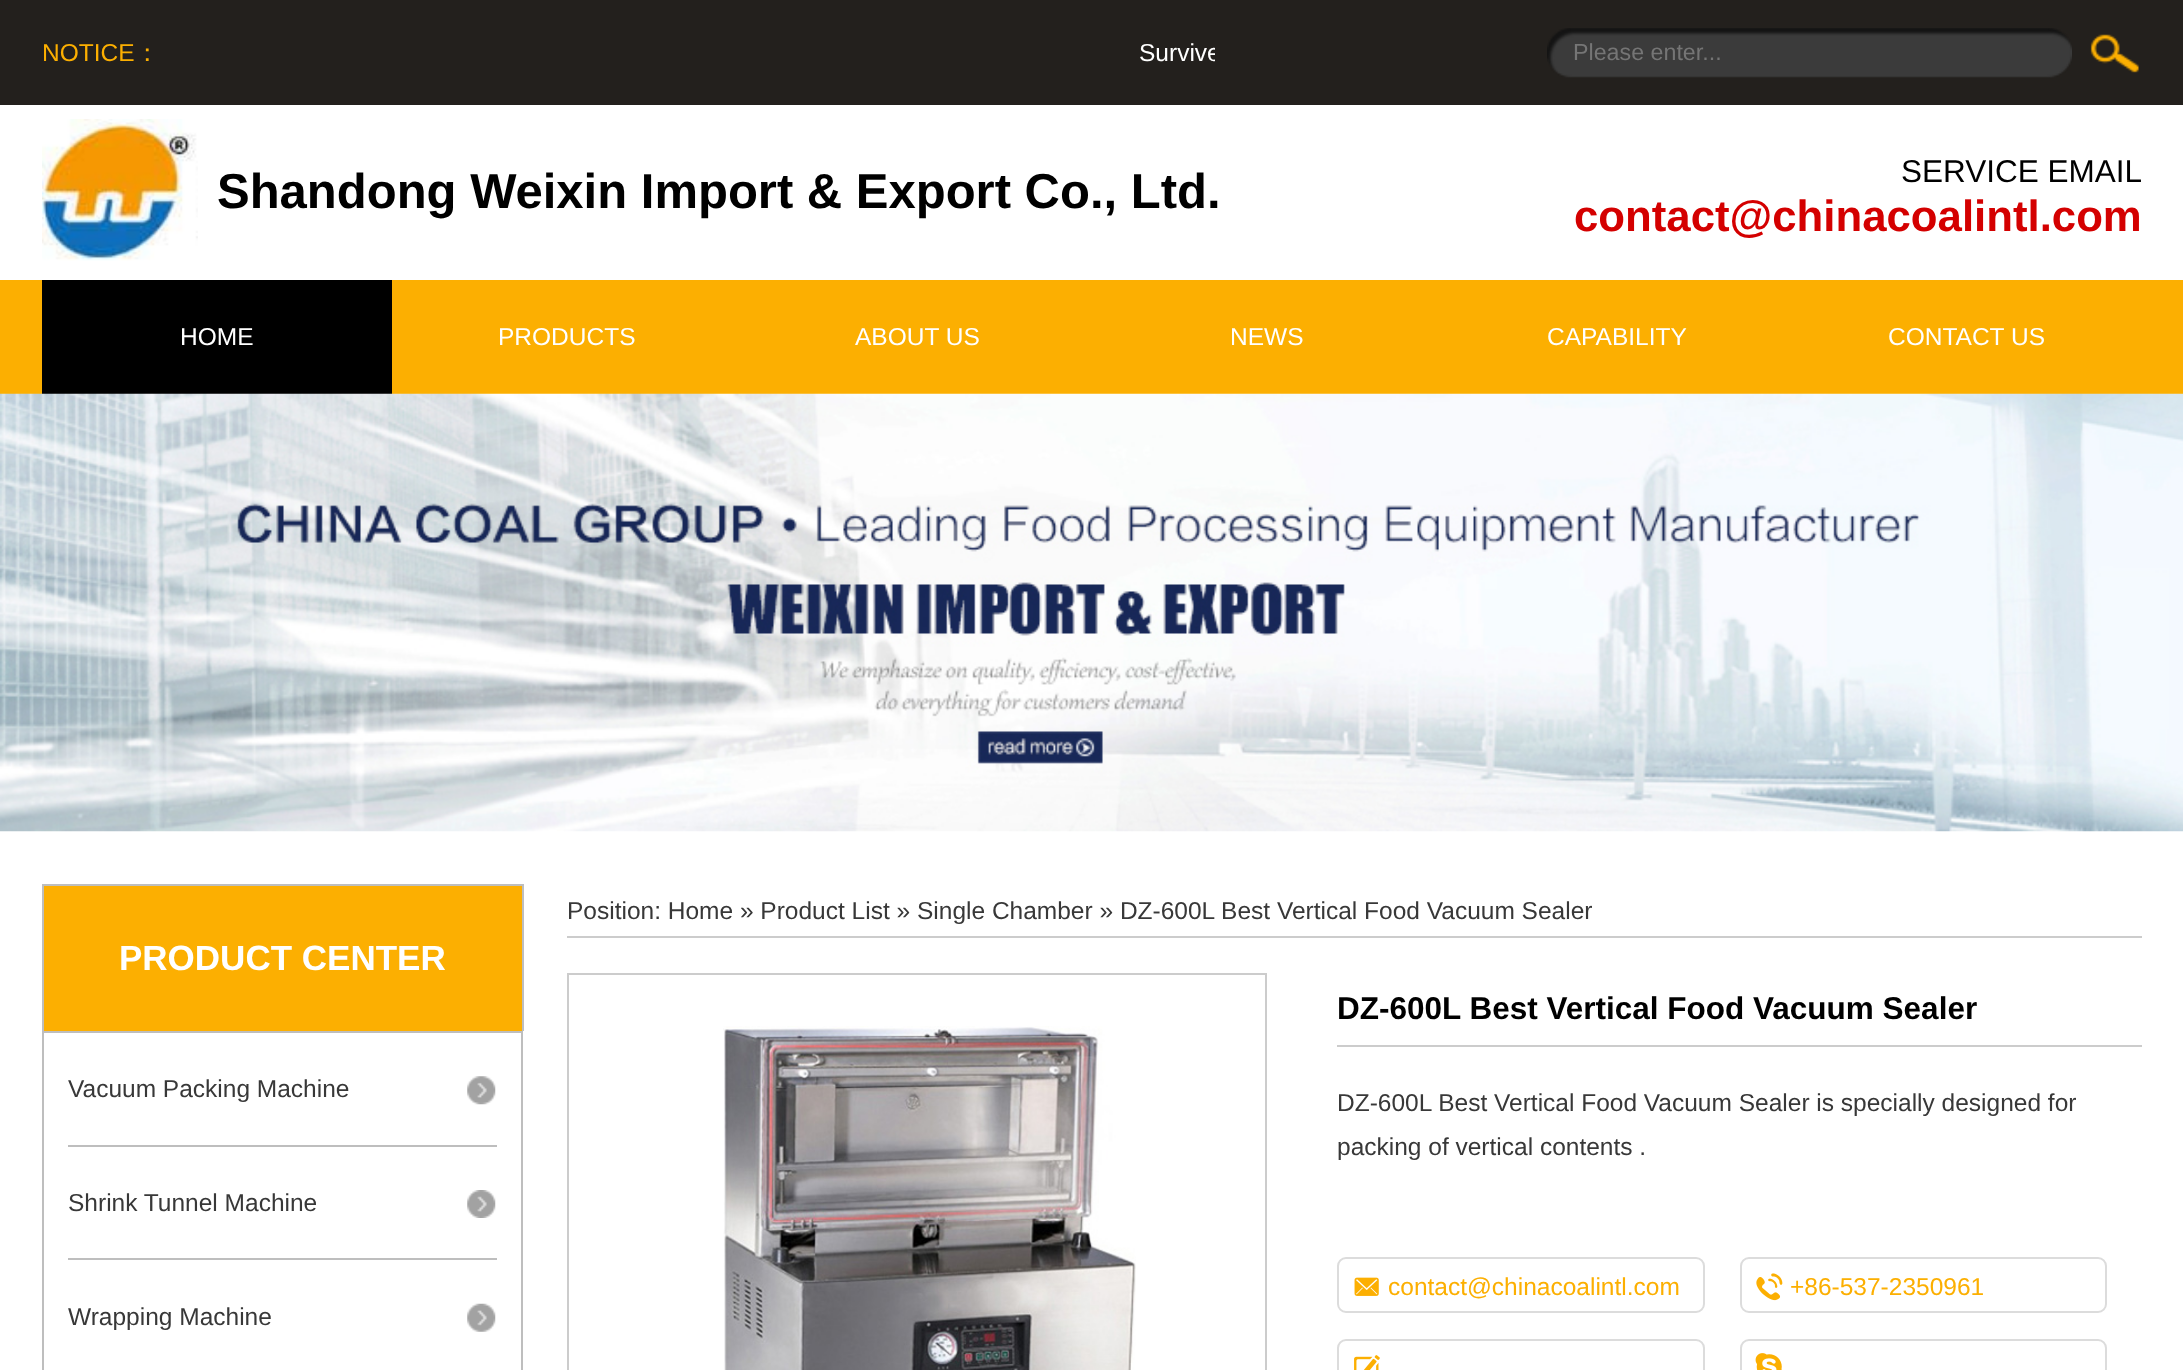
<!DOCTYPE html>
<meta charset="utf-8">
<style>body { margin: 0 } canvas { display: block }</style>
<canvas id="canvas" width="2183" height="1370"></canvas>
<img id="img1" src="img_01.png" hidden>
<img id="img2" src="img_02.png" hidden>
<img id="img3" src="img_03.png" hidden>
<img id="img4" src="img_04.png" hidden>
<img id="img5" src="img_05.png" hidden>
<img id="img6" src="img_06.png" hidden>
<img id="img7" src="img_07.png" hidden>
<img id="img8" src="img_08.png" hidden>
<img id="img9" src="img_09.png" hidden>
<img id="img10" src="img_10.png" hidden>
<img id="img11" src="img_11.png" hidden>
<img id="img12" src="img_12.png" hidden>
<script>
window.onload = function () {
	const canvas = document.getElementById("canvas");
	const ctx = canvas.getContext("2d");
	ctx.miterLimit = 4;
	ctx.fontKerning = "normal";
	function txt(s, x, y) {
		ctx.fillText(s, x, y);
	}
	function fill(x, y, w, h) {
		ctx.fillRect(x, y, w, h);
	}
	function img(id, x, y, w, h) {
		ctx.drawImage(document.getElementById(id), x, y, w, h);
	}

	ctx.fillStyle = "#FFFFFF";
	fill(0, 0, 2183, 1370);
	ctx.fillStyle = "#23201D";
	fill(0, 0, 2183, 105);
	img("img1", 1547, 28, 525, 50);
	img("img2", 2090, 34, 49, 39);
	img("img3", 42, 119, 156, 142);
	ctx.fillStyle = "#FCAF01";
	fill(0, 280, 2183, 114);
	ctx.fillStyle = "#000000";
	fill(42, 280, 350, 114);
	img("img4", 0, 393, 2183, 439);
	ctx.fillStyle = "#FCAF01";
	fill(44, 886, 478, 145);
	ctx.fillStyle = "#BEBEBE";
	fill(42, 884, 481, 2);
	fill(522, 884, 2, 147);
	fill(42, 884, 2, 147);
	ctx.strokeStyle = "#BEBEBE";
	ctx.lineWidth = 2;
	ctx.strokeRect(43, 1032, 479, 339);
	img("img5", 467, 1076, 29, 29);
	img("img6", 467, 1190, 29, 28);
	fill(68, 1145, 429, 2);
	img("img7", 467, 1303, 29, 29);
	fill(68, 1258, 429, 2);
	ctx.fillStyle = "#CCCCCC";
	fill(567, 936, 1575, 2);
	ctx.strokeStyle = "#CCCCCC";
	ctx.strokeRect(568, 974, 698, 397);
	img("img8", 723, 1026, 413, 344);
	fill(1337, 1045, 805, 2);
	ctx.beginPath();
	ctx.roundRect(1338, 1258, 366, 54, 8);
	ctx.strokeStyle = "#DCDCDC";
	ctx.stroke();
	img("img9", 1354, 1277, 25, 19);
	ctx.beginPath();
	ctx.roundRect(1741, 1258, 365, 54, 8);
	ctx.stroke();
	img("img10", 1756, 1273, 27, 28);
	ctx.beginPath();
	ctx.roundRect(1338, 1340, 366, 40, 8);
	ctx.stroke();
	img("img11", 1354, 1355, 26, 15);
	ctx.beginPath();
	ctx.roundRect(1741, 1340, 365, 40, 8);
	ctx.stroke();
	img("img12", 1755, 1353, 27, 17);
	ctx.font = "24.5px Liberation Sans";
	ctx.fillStyle = "#FCAF01";
	txt("NOTICE", 42, 61);
	ctx.font = "500 24.5px WenQuanYi Zen Hei";
	txt("：", 135, 61);
	ctx.save();
	ctx.beginPath();
	ctx.rect(165, 0, 1050, 105);
	ctx.clip();
	ctx.font = "24.5px Liberation Sans";
	ctx.fillStyle = "#FFFFFF";
	txt("Survive", 1139, 61);
	ctx.restore();
	ctx.font = "23.25px Liberation Sans";
	ctx.fillStyle = "#757575";
	txt("Please enter...", 1573, 60);
	ctx.font = "bold 49px Liberation Sans";
	ctx.fillStyle = "#000000";
	txt("Shandong Weixin Import & Export Co., Ltd.", 217, 208);
	ctx.font = "31.5px Liberation Sans";
	txt("SERVICE EMAIL", 1901, 182);
	ctx.font = "bold 43.75px Liberation Sans";
	ctx.fillStyle = "#D40000";
	txt("contact@chinacoalintl.com", 1574, 231);
	ctx.font = "24.5px Liberation Sans";
	ctx.fillStyle = "#FFFFFF";
	txt("HOME", 180, 345);
	txt("PRODUCTS", 498, 345);
	txt("ABOUT US", 855, 345);
	txt("NEWS", 1230, 345);
	txt("CAPABILITY", 1547, 345);
	txt("CONTACT US", 1888, 345);
	ctx.font = "bold 35px Liberation Sans";
	txt("PRODUCT CENTER", 119, 970);
	ctx.font = "24.5px Liberation Sans";
	ctx.fillStyle = "#383838";
	txt("Vacuum Packing Machine", 68, 1097);
	txt("Shrink Tunnel Machine", 68, 1211);
	txt("Wrapping Machine", 68, 1325);
	txt("Position: Home » Product List » Single Chamber » DZ-600L Best Vertical Food Vacuum Sealer", 567, 919);
	ctx.font = "bold 31.5px Liberation Sans";
	ctx.fillStyle = "#000000";
	txt("DZ-600L Best Vertical Food Vacuum Sealer", 1337, 1019);
	ctx.font = "24.5px Liberation Sans";
	ctx.fillStyle = "#383838";
	txt("DZ-600L Best Vertical Food Vacuum Sealer is specially designed for", 1337, 1111);
	txt("packing of vertical contents .", 1337, 1155);
	ctx.fillStyle = "#FCAF01";
	txt("contact@chinacoalintl.com", 1388, 1295);
	txt("+86-537-2350961", 1790, 1295);
};
</script>
